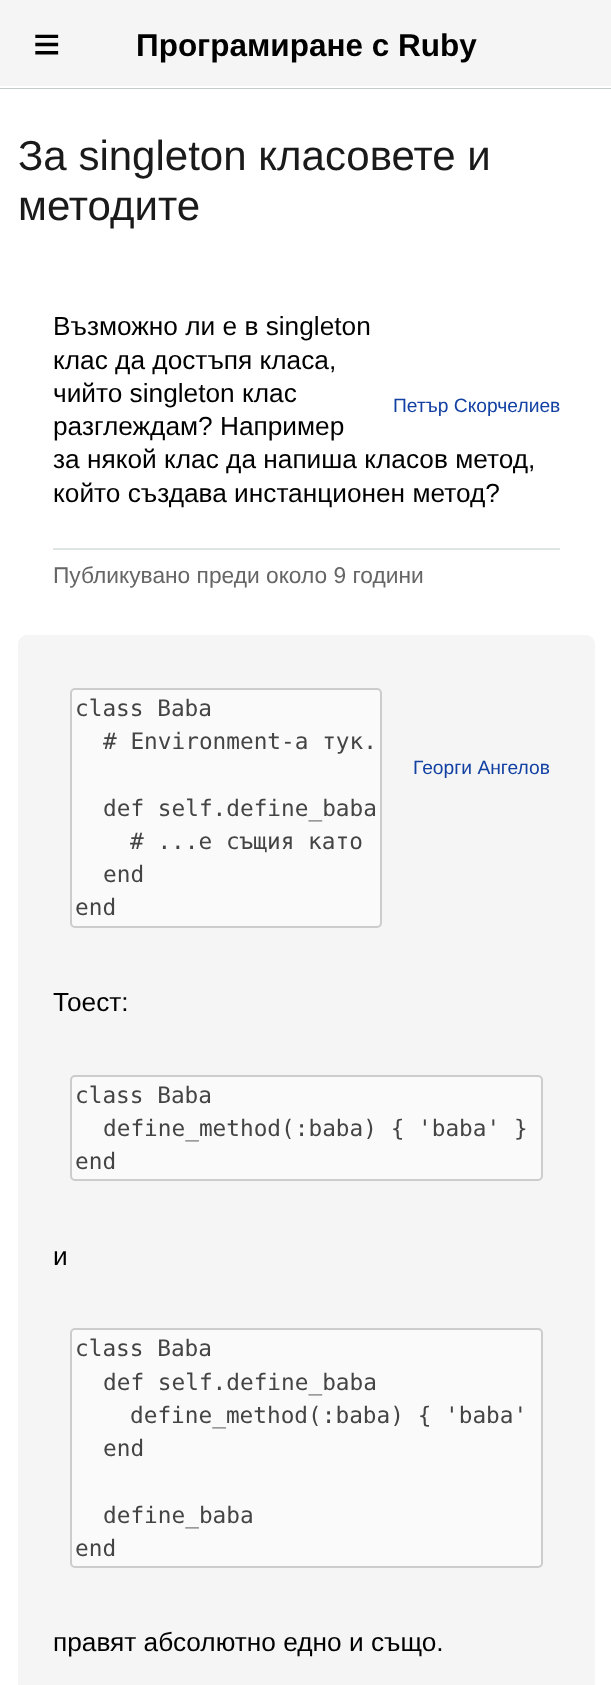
<!DOCTYPE html>
<meta charset="utf-8">
<style>body { margin: 0 } canvas { display: block }</style>
<canvas id="canvas" width="611" height="1685"></canvas>
<script>
window.onload = function () {
	const canvas = document.getElementById("canvas");
	const ctx = canvas.getContext("2d");
	ctx.miterLimit = 4;
	ctx.fontKerning = "normal";
	function txt(s, x, y) {
		ctx.fillText(s, x, y);
	}
	function fill(x, y, w, h) {
		ctx.fillRect(x, y, w, h);
	}

	ctx.fillStyle = "#FFFFFF";
	fill(0, 0, 611, 1685);
	ctx.fillStyle = "#C4CCCC";
	ctx.beginPath();
	ctx.moveTo(0, 88);
	ctx.lineTo(0, 89);
	ctx.lineTo(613, 89);
	ctx.lineTo(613, 2);
	ctx.lineTo(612, 2);
	ctx.lineTo(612, 88);
	ctx.closePath();
	ctx.fill();
	ctx.fillStyle = "#F5F5F5";
	fill(0, 0, 611, 86);
	ctx.fillStyle = "#DFE4E4";
	fill(53, 548, 507, 2);
	ctx.fillStyle = "#F5F5F5";
	ctx.beginPath();
	ctx.roundRect(18, 635, 577, 1050, [9, 9, 0, 0]);
	ctx.fill();
	ctx.fillStyle = "#FAFAFA";
	ctx.beginPath();
	ctx.roundRect(71, 689, 310, 238, 4);
	ctx.fill();
	ctx.strokeStyle = "#CCCCCC";
	ctx.lineWidth = 2;
	ctx.stroke();
	ctx.beginPath();
	ctx.roundRect(71, 1076, 471, 104, 4);
	ctx.fill();
	ctx.stroke();
	ctx.beginPath();
	ctx.roundRect(71, 1329, 471, 238, 4);
	ctx.fill();
	ctx.stroke();
	ctx.font = "47px Liberation Sans";
	ctx.fillStyle = "#000000";
	txt("≡", 33, 60);
	ctx.font = "bold 31.5px Liberation Sans";
	txt("Програмиране с Ruby", 136, 56);
	ctx.font = "42px Liberation Sans";
	ctx.fillStyle = "#1A1A1A";
	txt("За singleton класовете и", 18, 170);
	txt("методите", 18, 220);
	ctx.font = "26.25px Liberation Sans";
	ctx.fillStyle = "#000000";
	txt("Възможно ли е в singleton", 53, 335);
	txt("клас да достъпя класа,", 53, 369);
	txt("чийто singleton клас", 53, 402);
	txt("разглеждам? Например", 53, 435);
	txt("за някой клас да напиша класов метод,", 53, 468);
	txt("който създава инстанционен метод?", 53, 502);
	ctx.font = "19.25px Liberation Sans";
	ctx.fillStyle = "#1341A3";
	txt("Петър Скорчелиев", 393, 412);
	ctx.font = "22.75px Liberation Sans";
	ctx.fillStyle = "#666666";
	txt("Публикувано преди около 9 години", 53, 583);
	ctx.font = "22.75px DejaVu Sans Mono";
	ctx.fillStyle = "#444444";
	txt("class Baba", 75, 716);
	txt("# Environment-а тук.", 103, 749);
	txt("def self.define_baba", 103, 816);
	txt("# ...е същия като", 130, 849);
	txt("end", 103, 882);
	txt("end", 75, 915);
	ctx.font = "26.25px Liberation Sans";
	ctx.fillStyle = "#000000";
	txt("Тоест:", 53, 1011);
	ctx.font = "22.75px DejaVu Sans Mono";
	ctx.fillStyle = "#444444";
	txt("class Baba", 75, 1103);
	txt("define_method(:baba) { 'baba' }", 103, 1136);
	txt("end", 75, 1169);
	ctx.font = "26.25px Liberation Sans";
	ctx.fillStyle = "#000000";
	txt("и", 53, 1265);
	ctx.font = "22.75px DejaVu Sans Mono";
	ctx.fillStyle = "#444444";
	txt("class Baba", 75, 1356);
	txt("def self.define_baba", 103, 1390);
	txt("define_method(:baba) { 'baba'", 130, 1423);
	txt("end", 103, 1456);
	txt("define_baba", 103, 1523);
	txt("end", 75, 1556);
	ctx.font = "26.25px Liberation Sans";
	ctx.fillStyle = "#000000";
	txt("правят абсолютно едно и също.", 53, 1651);
	ctx.font = "19.25px Liberation Sans";
	ctx.fillStyle = "#1341A3";
	txt("Георги Ангелов", 413, 774);
};
</script>
